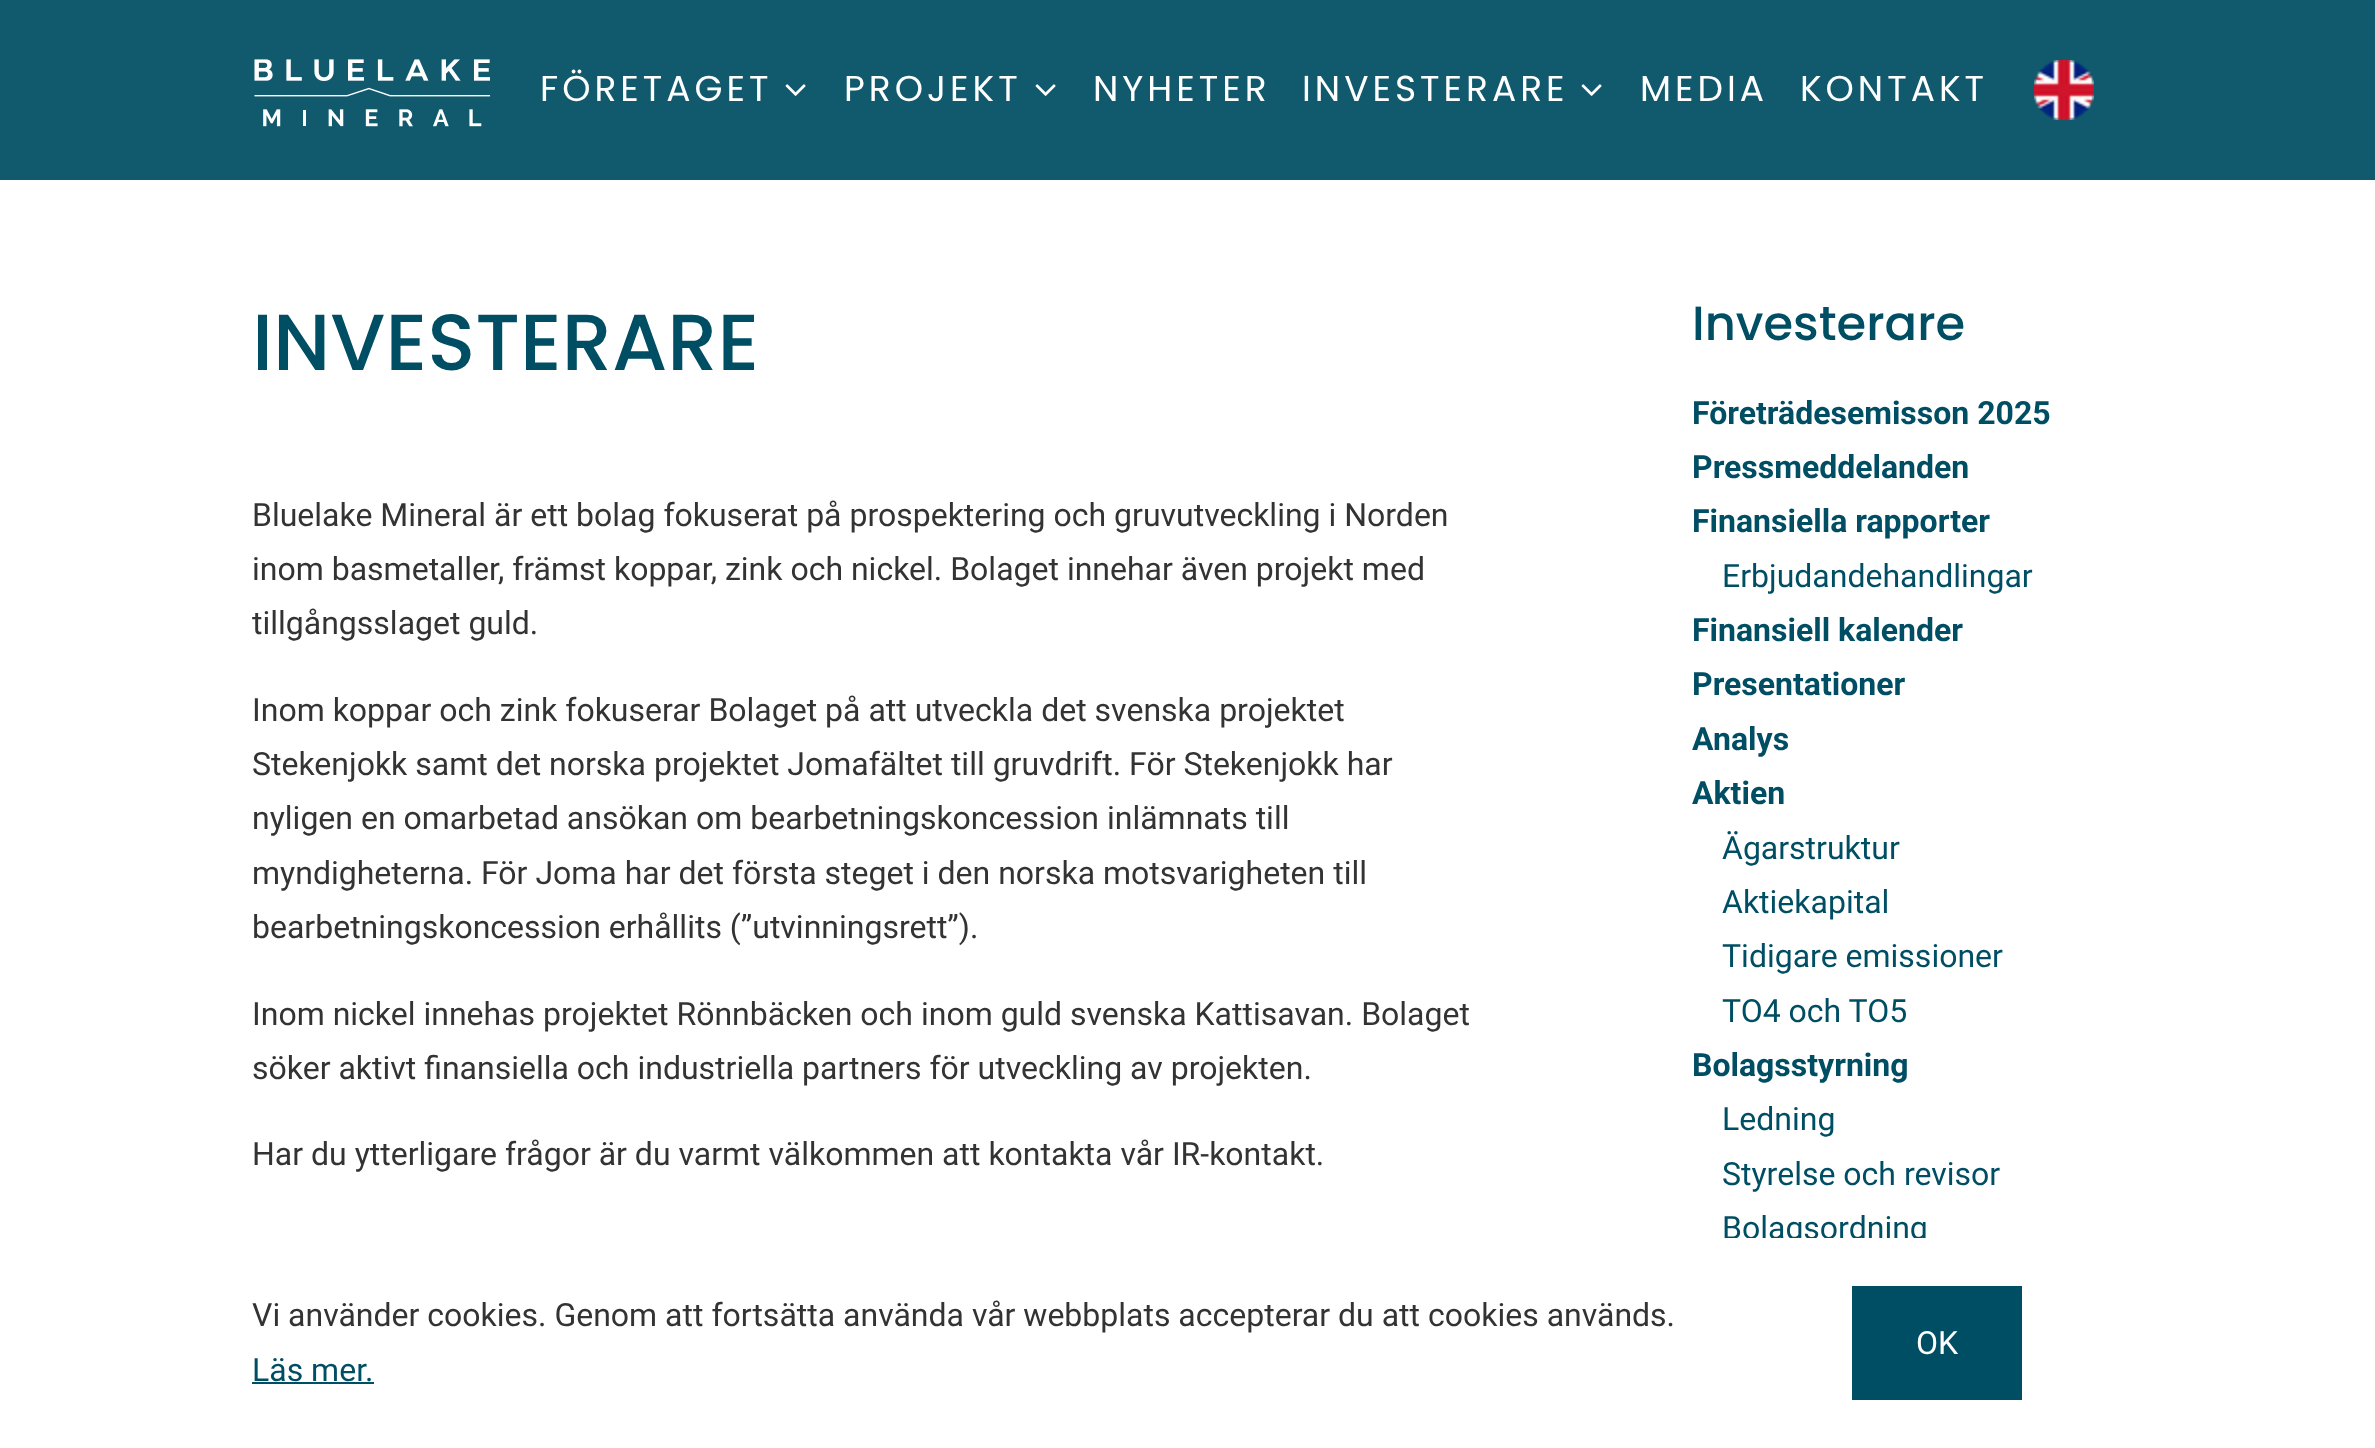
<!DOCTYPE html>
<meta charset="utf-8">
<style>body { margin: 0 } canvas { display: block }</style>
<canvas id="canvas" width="2375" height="1448"></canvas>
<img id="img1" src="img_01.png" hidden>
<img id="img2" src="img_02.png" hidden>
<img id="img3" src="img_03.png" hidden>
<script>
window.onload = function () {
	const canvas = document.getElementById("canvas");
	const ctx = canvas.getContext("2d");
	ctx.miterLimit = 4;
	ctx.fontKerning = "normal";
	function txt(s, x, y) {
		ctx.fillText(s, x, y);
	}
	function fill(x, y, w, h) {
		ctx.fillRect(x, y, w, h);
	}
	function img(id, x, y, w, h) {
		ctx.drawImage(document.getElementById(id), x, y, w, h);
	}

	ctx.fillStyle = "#FFFFFF";
	fill(0, 0, 2375, 1448);
	ctx.fillStyle = "#115A6E";
	fill(0, 0, 2375, 180);
	img("img1", 254, 59, 237, 68);
	img("img2", 785, 84, 21, 12);
	img("img2", 1035, 84, 21, 12);
	img("img2", 1581, 84, 21, 12);
	img("img3", 2034, 60, 60, 60);
	ctx.fillStyle = "#004E63";
	fill(252, 1382, 122, 2);
	fill(1852, 1286, 170, 114);
	ctx.letterSpacing = "4px";
	ctx.font = "36px Poppins";
	ctx.fillStyle = "#FFFFFF";
	txt("FÖRETAGET", 540, 101);
	txt("PROJEKT", 844, 101);
	txt("NYHETER", 1093, 101);
	txt("INVESTERARE", 1302, 101);
	txt("MEDIA", 1640, 101);
	txt("KONTAKT", 1800, 101);
	ctx.letterSpacing = "0px";
	ctx.font = "500 79.5px Poppins";
	ctx.fillStyle = "#004E63";
	txt("INVESTERARE", 252, 370);
	ctx.font = "32px Roboto";
	ctx.fillStyle = "#333333";
	txt("Bluelake Mineral är ett bolag fokuserat på prospektering och gruvutveckling i Norden", 252, 526);
	txt("inom basmetaller, främst koppar, zink och nickel. Bolaget innehar även projekt med", 252, 580);
	txt("tillgångsslaget guld.", 252, 634);
	txt("Inom koppar och zink fokuserar Bolaget på att utveckla det svenska projektet", 252, 721);
	txt("Stekenjokk samt det norska projektet Jomafältet till gruvdrift. För Stekenjokk har", 252, 775);
	txt("nyligen en omarbetad ansökan om bearbetningskoncession inlämnats till", 252, 829);
	txt("myndigheterna. För Joma har det första steget i den norska motsvarigheten till", 252, 884);
	txt("bearbetningskoncession erhållits (”utvinningsrett”).", 252, 938);
	txt("Inom nickel innehas projektet Rönnbäcken och inom guld svenska Kattisavan. Bolaget", 252, 1025);
	txt("söker aktivt finansiella och industriella partners för utveckling av projekten.", 252, 1079);
	txt("Har du ytterligare frågor är du varmt välkommen att kontakta vår IR-kontakt.", 252, 1165);
	ctx.font = "500 48px Poppins";
	ctx.fillStyle = "#004E63";
	txt("Investerare", 1692, 340);
	ctx.font = "bold 32px Roboto";
	txt("Företrädesemisson 2025", 1692, 424);
	txt("Pressmeddelanden", 1692, 478);
	txt("Finansiella rapporter", 1692, 532);
	ctx.font = "32px Roboto";
	txt("Erbjudandehandlingar", 1722, 587);
	ctx.font = "bold 32px Roboto";
	txt("Finansiell kalender", 1692, 641);
	txt("Presentationer", 1692, 695);
	txt("Analys", 1692, 750);
	txt("Aktien", 1692, 804);
	ctx.font = "32px Roboto";
	txt("Ägarstruktur", 1722, 859);
	txt("Aktiekapital", 1722, 913);
	txt("Tidigare emissioner", 1722, 967);
	txt("TO4 och TO5", 1722, 1022);
	ctx.font = "bold 32px Roboto";
	txt("Bolagsstyrning", 1692, 1076);
	ctx.font = "32px Roboto";
	txt("Ledning", 1722, 1130);
	txt("Styrelse och revisor", 1722, 1185);
	txt("Bolagsordning", 1722, 1239);
	ctx.fillStyle = "#FFFFFF";
	fill(1724, 1238, 202, 8);
	ctx.fillStyle = "#333333";
	txt("Vi använder cookies. Genom att fortsätta använda vår webbplats accepterar du att cookies används.", 252, 1326);
	ctx.fillStyle = "#004E63";
	txt("Läs mer.", 252, 1381);
	ctx.fillStyle = "#FFFFFF";
	txt("OK", 1916, 1354);
};
</script>
